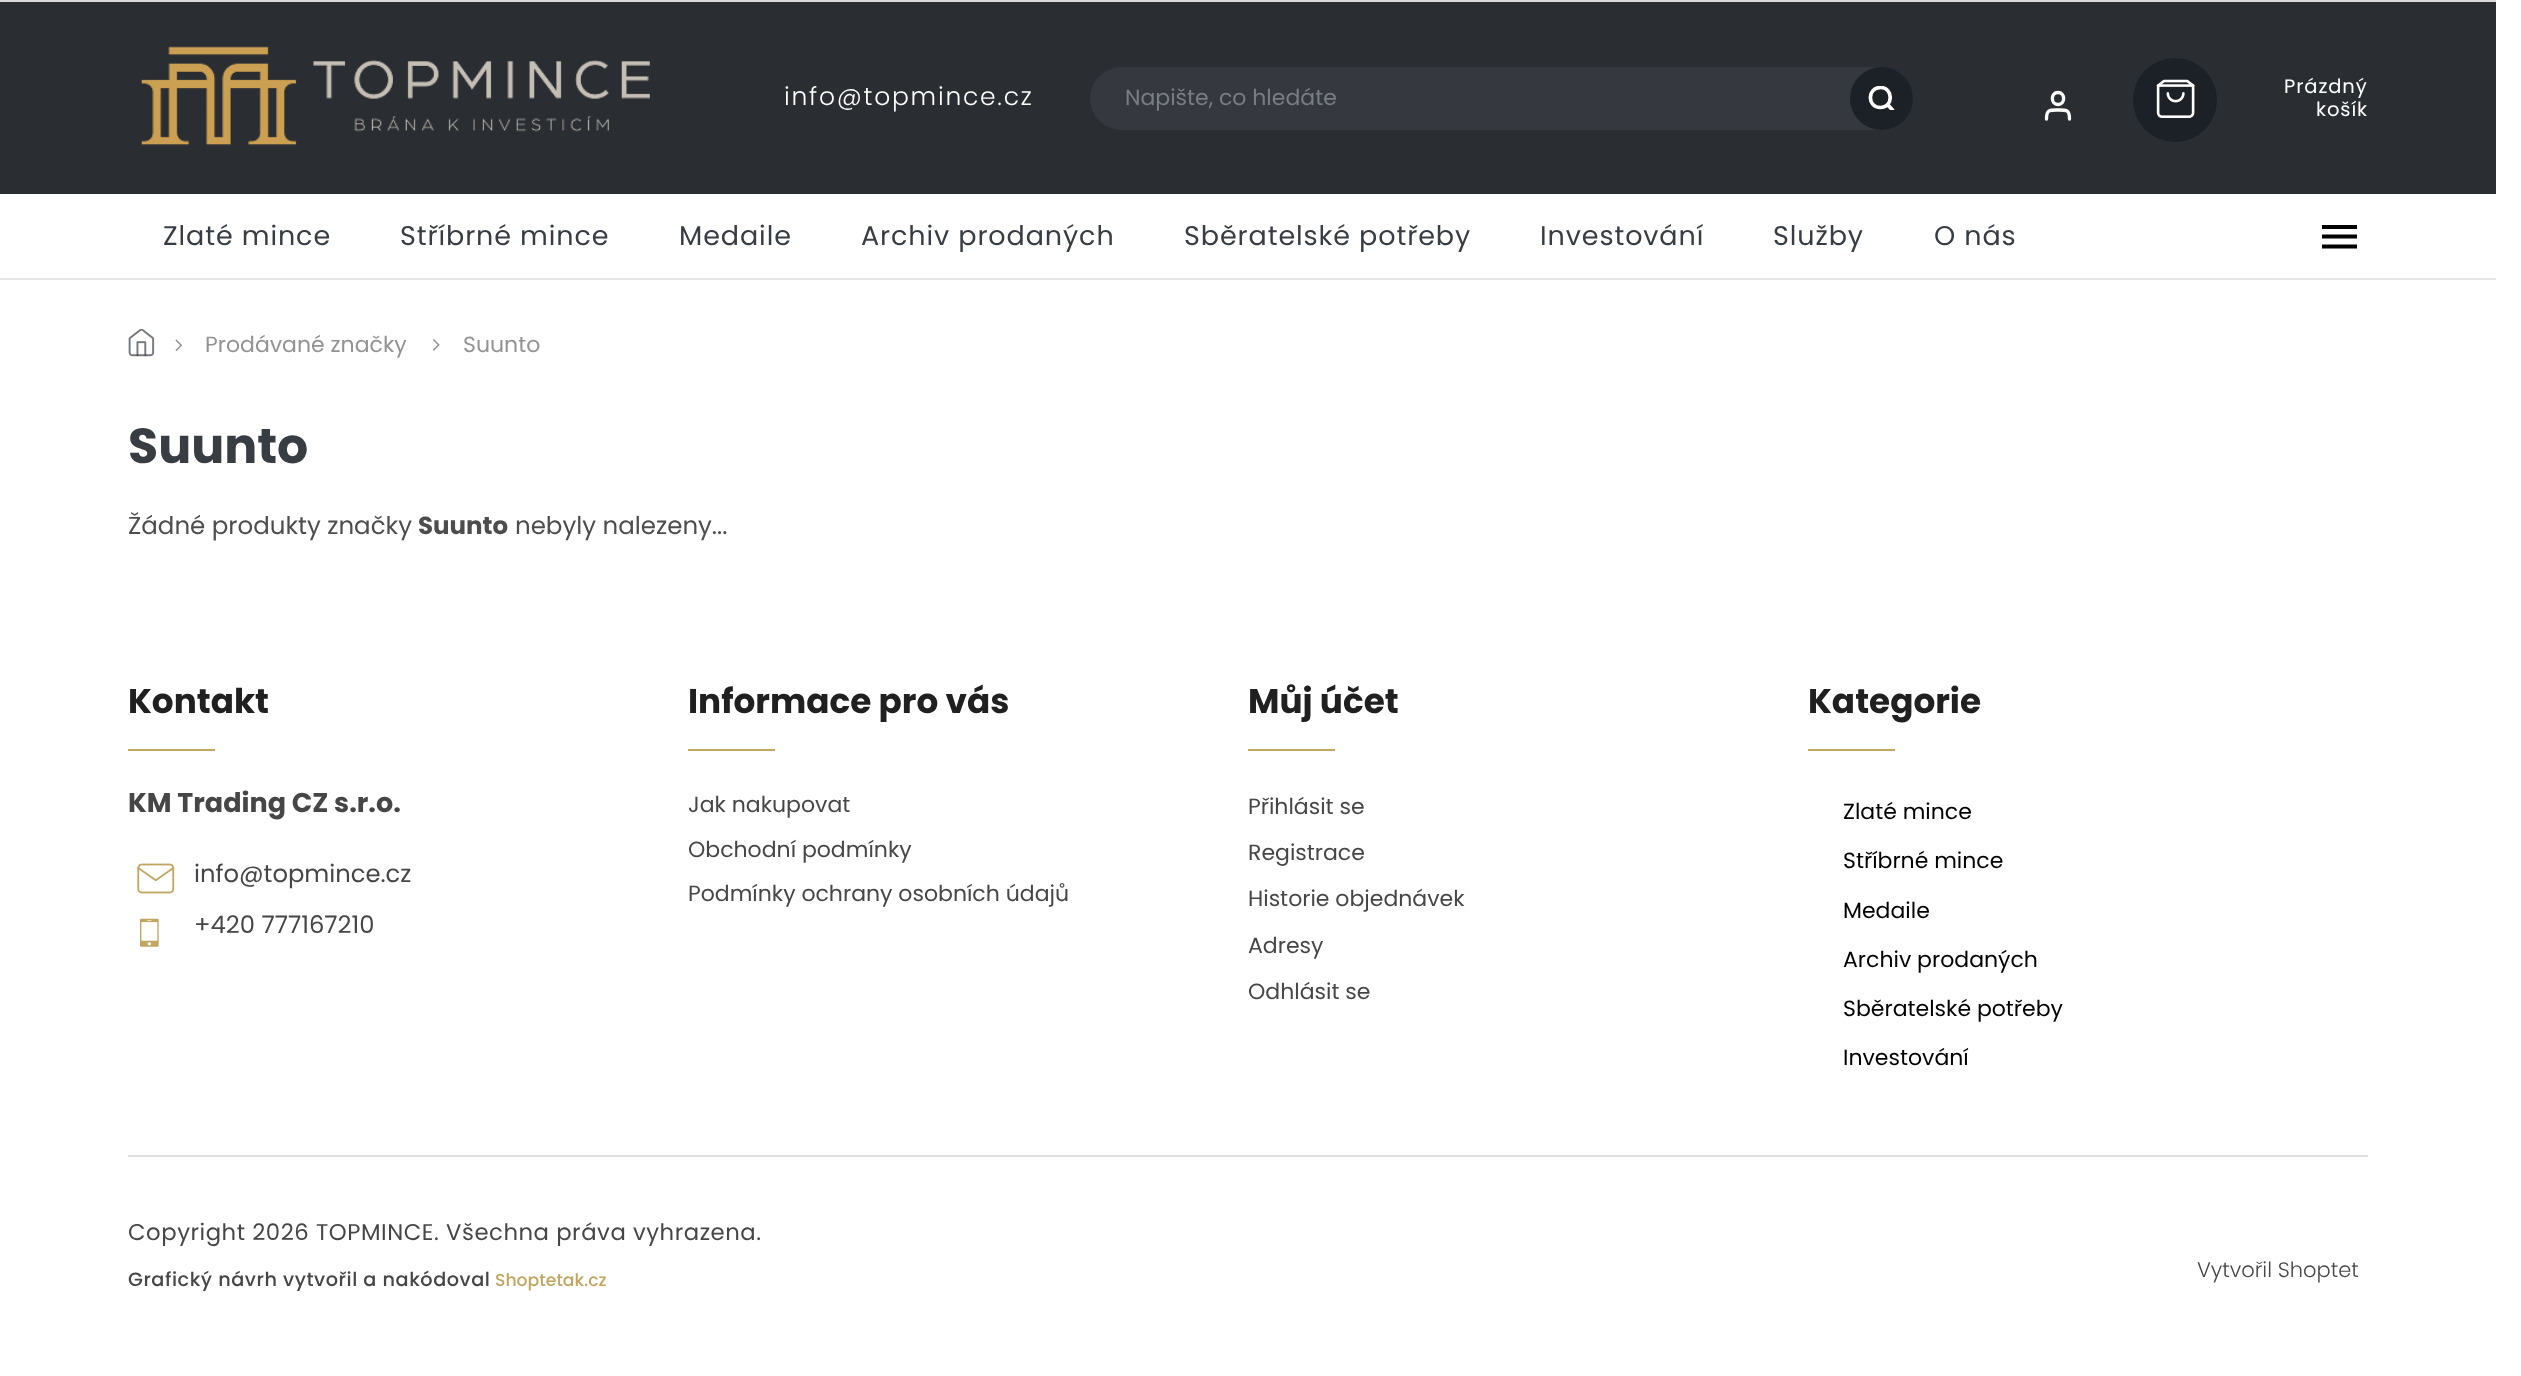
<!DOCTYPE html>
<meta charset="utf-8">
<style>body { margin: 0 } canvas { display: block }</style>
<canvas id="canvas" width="2521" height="1376"></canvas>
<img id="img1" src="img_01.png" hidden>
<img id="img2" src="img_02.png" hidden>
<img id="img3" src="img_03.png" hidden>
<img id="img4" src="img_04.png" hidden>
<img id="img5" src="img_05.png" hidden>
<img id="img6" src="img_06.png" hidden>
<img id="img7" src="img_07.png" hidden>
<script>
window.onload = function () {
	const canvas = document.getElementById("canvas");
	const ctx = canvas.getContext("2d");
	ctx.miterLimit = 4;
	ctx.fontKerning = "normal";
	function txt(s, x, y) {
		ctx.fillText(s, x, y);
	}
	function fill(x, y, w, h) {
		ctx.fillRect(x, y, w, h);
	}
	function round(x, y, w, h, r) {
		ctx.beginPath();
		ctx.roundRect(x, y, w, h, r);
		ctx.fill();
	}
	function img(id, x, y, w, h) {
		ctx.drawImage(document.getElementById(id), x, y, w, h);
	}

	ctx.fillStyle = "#FFFFFF";
	fill(0, 0, 2521, 1376);
	ctx.fillStyle = "#E6E6E6";
	fill(0, 278, 2496, 2);
	ctx.fillStyle = "#2A2D32";
	fill(0, 2, 2496, 192);
	img("img1", 141, 46, 509, 100);
	ctx.fillStyle = "#35393F";
	round(1090, 67, 823, 63, 31.5);
	ctx.fillStyle = "#1C2027";
	ctx.beginPath();
	ctx.arc(1881.5, 98.5, 31.5, 0, Math.PI * 2);
	ctx.fill();
	ctx.save();
	ctx.beginPath();
	ctx.rect(1867, 86, 28, 24);
	ctx.clip();
	ctx.beginPath();
	ctx.moveTo(1880.5, 107.5);
	ctx.bezierCurveTo(1893.5, 107.5, 1893.5, 87.5, 1880.5, 87.5);
	ctx.bezierCurveTo(1867, 87.5, 1867, 107.5, 1880.5, 107.5);
	ctx.closePath();
	ctx.moveTo(1892.5, 110);
	ctx.lineTo(1887.5, 104.5);
	ctx.strokeStyle = "#FFFFFF";
	ctx.lineWidth = 3.7;
	ctx.lineCap = "round";
	ctx.lineJoin = "round";
	ctx.stroke();
	ctx.restore();
	ctx.beginPath();
	ctx.arc(2175, 100, 42, 0, Math.PI * 2);
	ctx.fill();
	img("img2", 2156, 79, 39, 39);
	ctx.fillStyle = "#000000";
	ctx.beginPath();
	ctx.moveTo(2322, 248.5);
	ctx.lineTo(2357, 248.5);
	ctx.lineTo(2357, 244.5);
	ctx.lineTo(2322, 244.5);
	ctx.closePath();
	ctx.moveTo(2322, 238.5);
	ctx.lineTo(2357, 238.5);
	ctx.lineTo(2357, 234.5);
	ctx.lineTo(2322, 234.5);
	ctx.closePath();
	ctx.moveTo(2322, 225);
	ctx.lineTo(2322, 229);
	ctx.lineTo(2357, 229);
	ctx.lineTo(2357, 225);
	ctx.closePath();
	ctx.fill();
	ctx.fillStyle = "#DADADA";
	fill(0, 0, 2496, 2);
	ctx.beginPath();
	ctx.moveTo(2069.5, 119);
	ctx.bezierCurveTo(2069.5, 109.5, 2066.5, 110, 2058, 110);
	ctx.bezierCurveTo(2049.5, 110, 2046.5, 109.5, 2046.5, 119);
	ctx.moveTo(2058, 104.5);
	ctx.bezierCurveTo(2065.5, 104.5, 2065.5, 92.5, 2058, 92.5);
	ctx.bezierCurveTo(2050.5, 92.5, 2050.5, 104.5, 2058, 104.5);
	ctx.closePath();
	ctx.strokeStyle = "#FFFFFF";
	ctx.lineWidth = 3.3;
	ctx.lineCap = "round";
	ctx.lineJoin = "round";
	ctx.stroke();
	img("img3", 128, 329, 27, 28);
	img("img4", 175, 339, 8, 13);
	img("img5", 433, 339, 7, 12);
	ctx.fillStyle = "#C1A661";
	fill(128, 749, 87, 2);
	img("img6", 137, 863, 38, 31);
	img("img7", 140, 918, 19, 29);
	fill(688, 749, 87, 2);
	fill(1248, 749, 87, 2);
	fill(1808, 749, 87, 2);
	ctx.fillStyle = "#E0E0E0";
	fill(128, 1155, 2240, 2);
	ctx.font = "22px Poppins";
	ctx.fillStyle = "#797D84";
	txt("Napište, co hledáte", 1125, 105);
	ctx.letterSpacing = "0.9px";
	ctx.font = "19.5px Poppins";
	ctx.fillStyle = "#FFFFFF";
	txt("Prázdný", 2284, 93);
	txt("košík", 2316, 116);
	ctx.font = "27px Poppins";
	ctx.fillStyle = "#383C43";
	txt("Zlaté mince", 163, 245);
	txt("Stříbrné mince", 400, 245);
	txt("Medaile", 679, 245);
	txt("Archiv prodaných", 861, 245);
	txt("Sběratelské potřeby", 1184, 245);
	txt("Investování", 1540, 245);
	txt("Služby", 1773, 245);
	txt("O nás", 1934, 245);
	ctx.letterSpacing = "1.75px";
	ctx.font = "300 25px Poppins";
	ctx.fillStyle = "#FFFFFF";
	txt("info@topmince.cz", 784, 105);
	ctx.letterSpacing = "0px";
	ctx.font = "22px Poppins";
	ctx.fillStyle = "#939393";
	txt("Prodávané značky", 205, 352);
	txt("Suunto", 463, 352);
	ctx.font = "bold 49px Poppins";
	ctx.fillStyle = "#383C43";
	txt("Suunto", 128, 463);
	ctx.font = "24.5px Poppins";
	ctx.fillStyle = "#4D4D4D";
	txt("Žádné produkty značky", 128, 534);
	ctx.font = "bold 24.5px Poppins";
	txt("Suunto", 418, 534);
	ctx.font = "24.5px Poppins";
	txt("nebyly nalezeny...", 515, 534);
	ctx.font = "bold 34.25px Poppins";
	ctx.fillStyle = "#202020";
	txt("Kontakt", 128, 713);
	ctx.font = "bold 27px Poppins";
	ctx.fillStyle = "#464646";
	txt("KM Trading CZ s.r.o.", 128, 812);
	ctx.font = "24.25px Poppins";
	txt("info@topmince.cz", 194, 882);
	txt("+420 777167210", 194, 933);
	ctx.font = "bold 34.25px Poppins";
	ctx.fillStyle = "#202020";
	txt("Informace pro vás", 688, 713);
	ctx.font = "22px Poppins";
	ctx.fillStyle = "#464646";
	txt("Jak nakupovat", 688, 812);
	txt("Obchodní podmínky", 688, 857);
	txt("Podmínky ochrany osobních údajů", 688, 901);
	ctx.font = "bold 34.25px Poppins";
	ctx.fillStyle = "#202020";
	txt("Můj účet", 1248, 713);
	ctx.font = "22px Poppins";
	ctx.fillStyle = "#464646";
	txt("Přihlásit se", 1248, 814);
	txt("Registrace", 1248, 860);
	txt("Historie objednávek", 1248, 906);
	txt("Adresy", 1248, 953);
	txt("Odhlásit se", 1248, 999);
	ctx.font = "bold 34.25px Poppins";
	ctx.fillStyle = "#202020";
	txt("Kategorie", 1808, 713);
	ctx.font = "22px Poppins";
	ctx.fillStyle = "#000000";
	txt("Zlaté mince", 1843, 819);
	txt("Stříbrné mince", 1843, 868);
	txt("Medaile", 1843, 918);
	txt("Archiv prodaných", 1843, 967);
	txt("Sběratelské potřeby", 1843, 1016);
	txt("Investování", 1843, 1065);
	ctx.letterSpacing = "0.55px";
	ctx.font = "22.75px Poppins";
	ctx.fillStyle = "#464646";
	txt("Copyright 2026 TOPMINCE. Všechna práva vyhrazena.", 128, 1240);
	ctx.font = "500 19.25px Poppins";
	txt("Grafický návrh vytvořil a nakódoval", 128, 1286);
	ctx.letterSpacing = "0px";
	ctx.font = "500 17.25px Poppins";
	ctx.fillStyle = "#C1A661";
	txt("Shoptetak.cz", 495, 1286);
	ctx.font = "300 21px Poppins";
	ctx.fillStyle = "#464646";
	txt("Vytvořil Shoptet", 2197, 1277);
};
</script>
